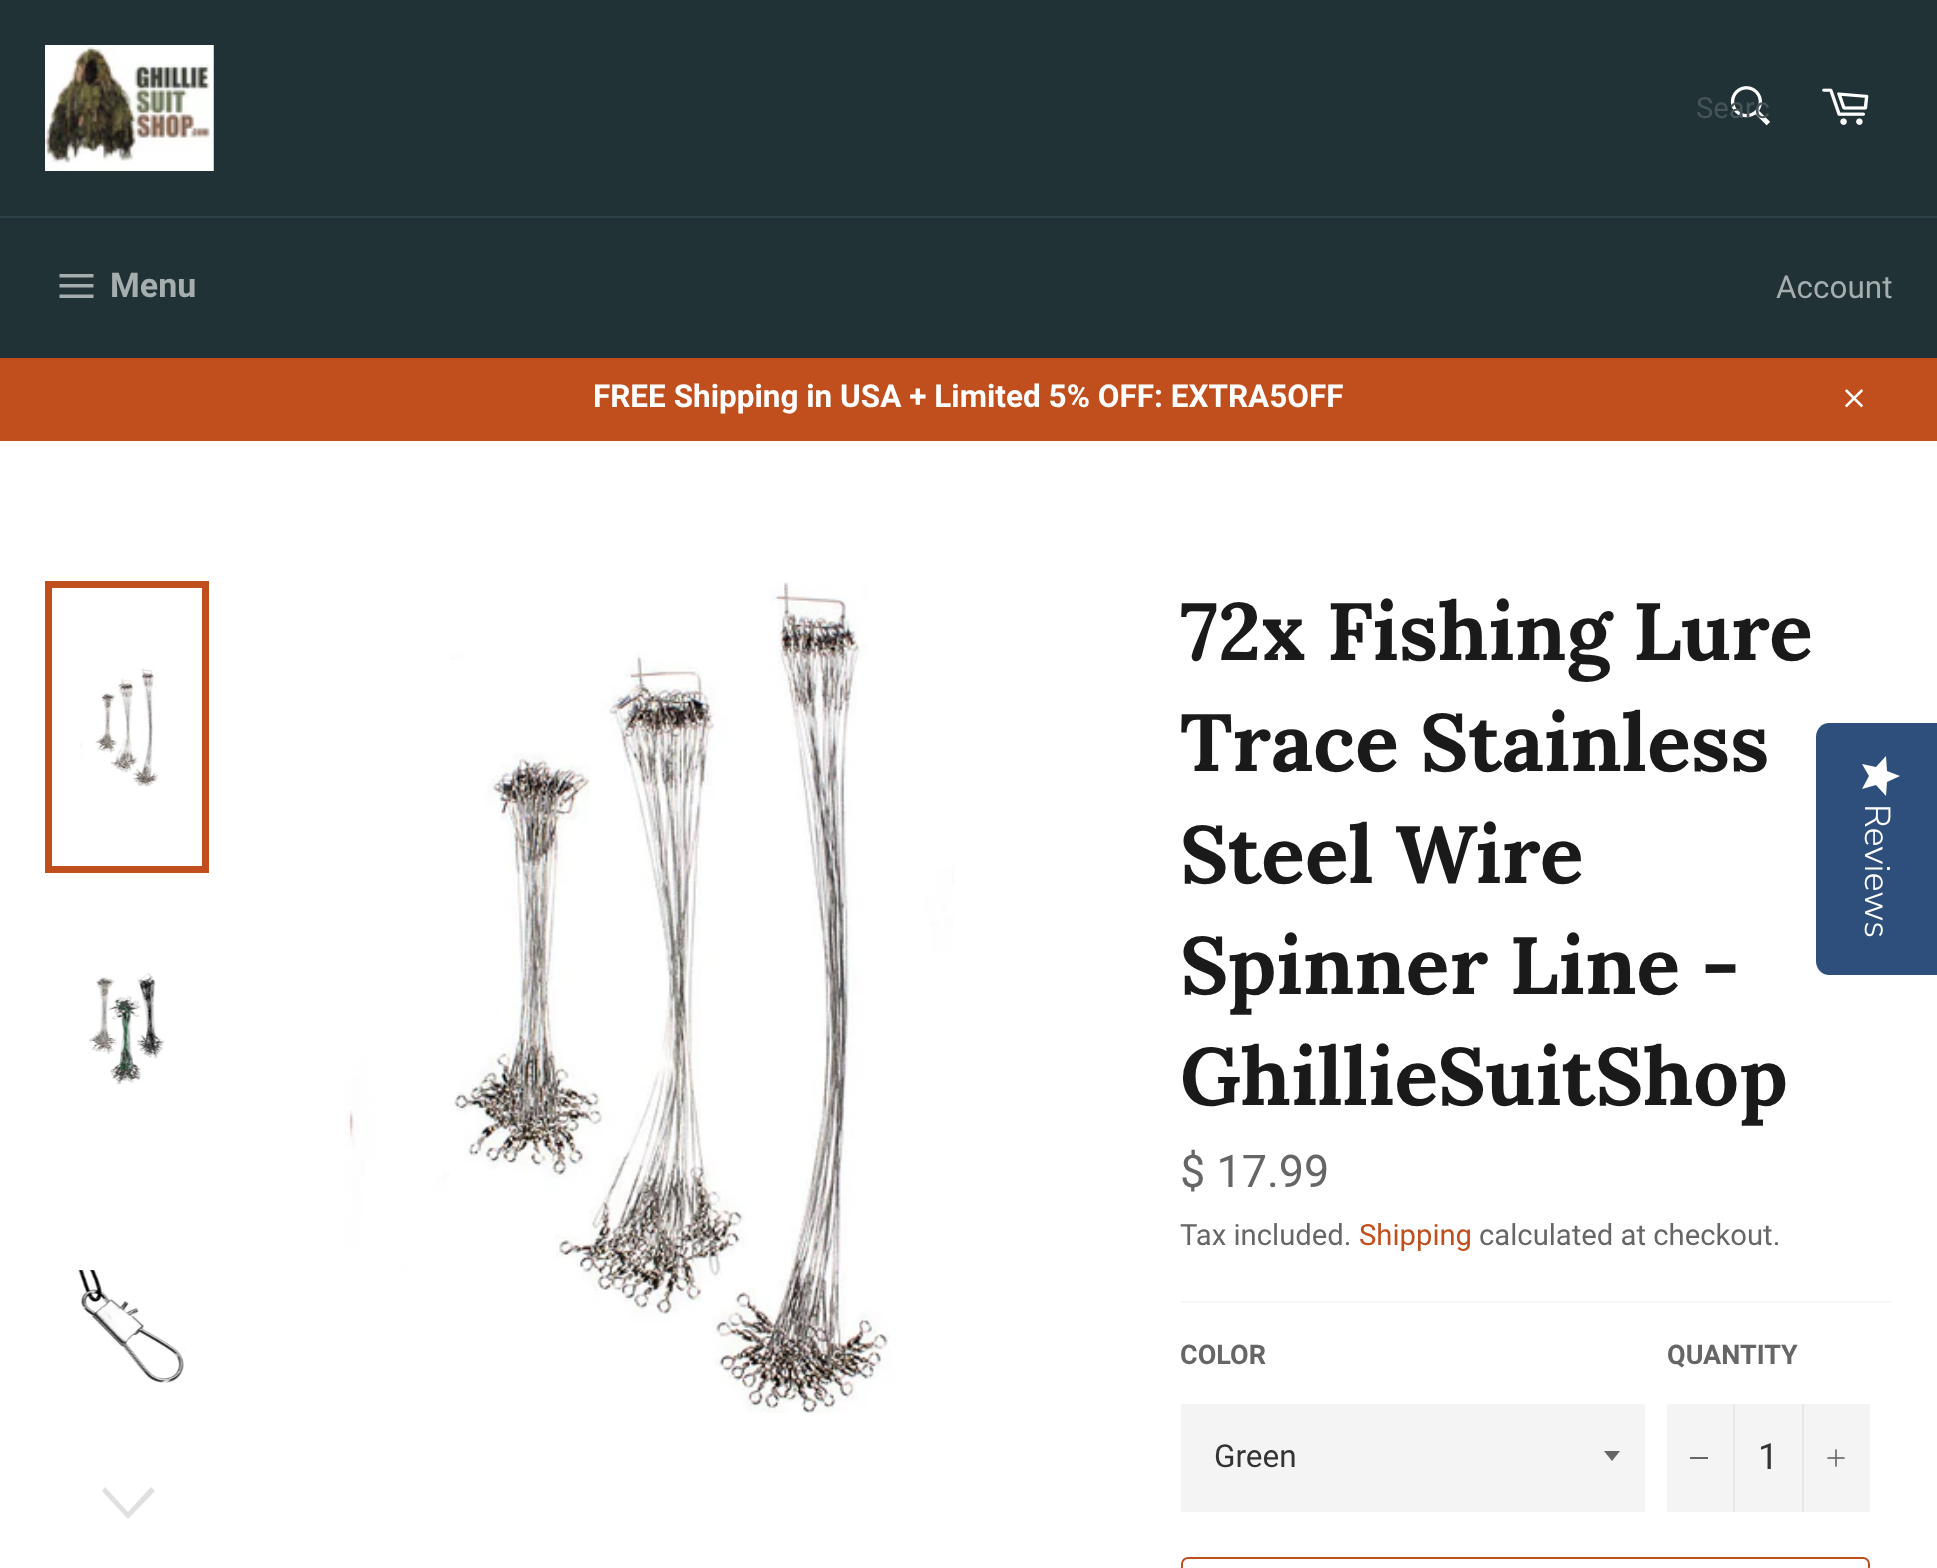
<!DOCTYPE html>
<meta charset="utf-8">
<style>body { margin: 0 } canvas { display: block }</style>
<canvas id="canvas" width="1937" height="1568"></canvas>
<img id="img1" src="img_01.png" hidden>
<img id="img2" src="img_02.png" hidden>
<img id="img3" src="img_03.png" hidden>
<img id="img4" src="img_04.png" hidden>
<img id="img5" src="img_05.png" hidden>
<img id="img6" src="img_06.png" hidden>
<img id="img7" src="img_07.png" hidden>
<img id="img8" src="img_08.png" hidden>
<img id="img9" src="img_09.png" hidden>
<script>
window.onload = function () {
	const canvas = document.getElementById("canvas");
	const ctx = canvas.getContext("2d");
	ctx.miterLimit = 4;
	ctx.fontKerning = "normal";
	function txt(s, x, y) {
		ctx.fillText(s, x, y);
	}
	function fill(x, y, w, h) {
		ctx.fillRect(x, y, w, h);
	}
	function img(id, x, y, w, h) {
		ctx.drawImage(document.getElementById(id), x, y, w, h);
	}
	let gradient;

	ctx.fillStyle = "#213236";
	fill(0, 0, 1937, 1568);
	img("img1", 45, 45, 169, 126);
	img("img2", 1730, 86, 40, 40);
	img("img3", 1822, 88, 47, 37);
	ctx.fillStyle = "#2B4146";
	fill(0, 216, 1937, 2);
	ctx.fillStyle = "#A6ADAF";
	ctx.beginPath();
	ctx.moveTo(59.5, 284);
	ctx.lineTo(93.5, 284);
	ctx.lineTo(93.5, 287.5);
	ctx.lineTo(59.5, 287.5);
	ctx.closePath();
	ctx.moveTo(59.5, 274);
	ctx.lineTo(93.5, 274);
	ctx.lineTo(93.5, 277.5);
	ctx.lineTo(59.5, 277.5);
	ctx.closePath();
	ctx.moveTo(59.5, 294.5);
	ctx.lineTo(93.5, 294.5);
	ctx.lineTo(93.5, 298);
	ctx.lineTo(59.5, 298);
	ctx.closePath();
	ctx.fill();
	ctx.fillStyle = "#C04F1D";
	fill(0, 358, 1937, 83);
	img("img4", 1844, 389, 20, 19);
	ctx.fillStyle = "#FFFFFF";
	fill(0, 441, 1937, 1127);
	img("img5", 80, 667, 79, 120);
	ctx.strokeStyle = "#C04F1D";
	ctx.lineWidth = 7;
	ctx.strokeRect(48.5, 584.5, 157, 285);
	img("img6", 88, 973, 77, 112);
	img("img7", 78, 1270, 108, 113);
	ctx.fillStyle = "#E0E0E0";
	ctx.beginPath();
	ctx.moveTo(151, 1487);
	ctx.lineTo(155, 1491);
	ctx.lineTo(128, 1519);
	ctx.lineTo(102, 1491);
	ctx.lineTo(105, 1487);
	ctx.lineTo(128, 1512);
	ctx.closePath();
	ctx.fill();
	img("img8", 345, 582, 609, 831);
	ctx.fillStyle = "#F7F7F7";
	fill(1181, 1301, 711, 2);
	ctx.fillStyle = "#F4F4F4";
	fill(1181, 1404, 464, 108);
	ctx.fillStyle = "#666666";
	ctx.beginPath();
	ctx.moveTo(1604, 1451);
	ctx.lineTo(1612, 1461);
	ctx.lineTo(1620, 1451);
	ctx.closePath();
	ctx.fill();
	ctx.fillStyle = "#F4F4F4";
	fill(1667, 1404, 203, 108);
	ctx.fillStyle = "#E7E7E7";
	fill(1733, 1404, 2, 108);
	ctx.fillStyle = "#666666";
	fill(1690, 1457, 18, 2);
	ctx.fillStyle = "#E7E7E7";
	fill(1802, 1404, 2, 108);
	img("img9", 1827, 1449, 18, 18);
	ctx.beginPath();
	ctx.roundRect(1182, 1558, 687, 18, 6);
	ctx.lineWidth = 2;
	ctx.stroke();
	ctx.fillStyle = "#2E4F7C";
	ctx.beginPath();
	ctx.moveTo(1937, 723);
	ctx.lineTo(1937, 975);
	ctx.lineTo(1829, 975);
	ctx.bezierCurveTo(1822, 975, 1816, 969, 1816, 961);
	ctx.lineTo(1816, 737);
	ctx.bezierCurveTo(1816, 729, 1822, 723, 1829, 723);
	ctx.closePath();
	ctx.fill();
	gradient = ctx.createLinearGradient(1900, 756, 1900, 797);
	gradient.addColorStop(1, "#FFFFFF");
	gradient.addColorStop(1, "#EAEAEA");
	ctx.fillStyle = gradient;
	ctx.beginPath();
	ctx.moveTo(1869, 776);
	ctx.lineTo(1862, 789);
	ctx.lineTo(1876, 785);
	ctx.lineTo(1886, 796);
	ctx.lineTo(1887, 782);
	ctx.lineTo(1900, 776);
	ctx.lineTo(1887, 771);
	ctx.lineTo(1886, 756);
	ctx.lineTo(1876, 767);
	ctx.lineTo(1862, 764);
	ctx.closePath();
	ctx.fill();
	ctx.font = "29.25px Roboto";
	ctx.fillStyle = "#465457";
	txt("Searc", 1696, 118);
	ctx.font = "bold 34px Roboto";
	ctx.fillStyle = "#A6ADAF";
	txt("Menu", 110, 297);
	ctx.font = "31.5px Roboto";
	txt("Account", 1776, 298);
	ctx.font = "bold 31.5px Roboto";
	ctx.fillStyle = "#FFFFFF";
	txt("FREE Shipping in USA + Limited 5% OFF: EXTRA5OFF", 593, 407);
	ctx.font = "bold 81px Lora";
	ctx.fillStyle = "#1A1A1A";
	txt("72x Fishing Lure", 1180, 660);
	txt("Trace Stainless", 1180, 771);
	txt("Steel Wire", 1180, 883);
	txt("Spinner Line -", 1180, 994);
	txt("GhillieSuitShop", 1180, 1105);
	ctx.font = "45px Roboto";
	ctx.fillStyle = "#666666";
	txt("$ 17.99", 1180, 1187);
	ctx.font = "29.25px Roboto";
	txt("Tax included.", 1180, 1245);
	ctx.fillStyle = "#C04F1D";
	txt("Shipping", 1359, 1245);
	ctx.fillStyle = "#666666";
	txt("calculated at checkout.", 1479, 1245);
	ctx.font = "bold 27px Roboto";
	txt("COLOR", 1180, 1364);
	ctx.font = "31.5px Roboto";
	ctx.fillStyle = "#333333";
	txt("Green", 1214, 1467);
	ctx.font = "bold 27px Roboto";
	ctx.fillStyle = "#666666";
	txt("QUANTITY", 1667, 1364);
	ctx.font = "36px Roboto";
	ctx.fillStyle = "#333333";
	txt("1", 1758, 1469);
	ctx.font = "300 36px Nunito Sans";
	ctx.fillStyle = "#FFFFFF";
	ctx.save();
	ctx.translate(1865, 804);
	ctx.rotate(90 * Math.PI / 180);
	ctx.fillText("Reviews", 0, 0);
	ctx.restore();
};
</script>
